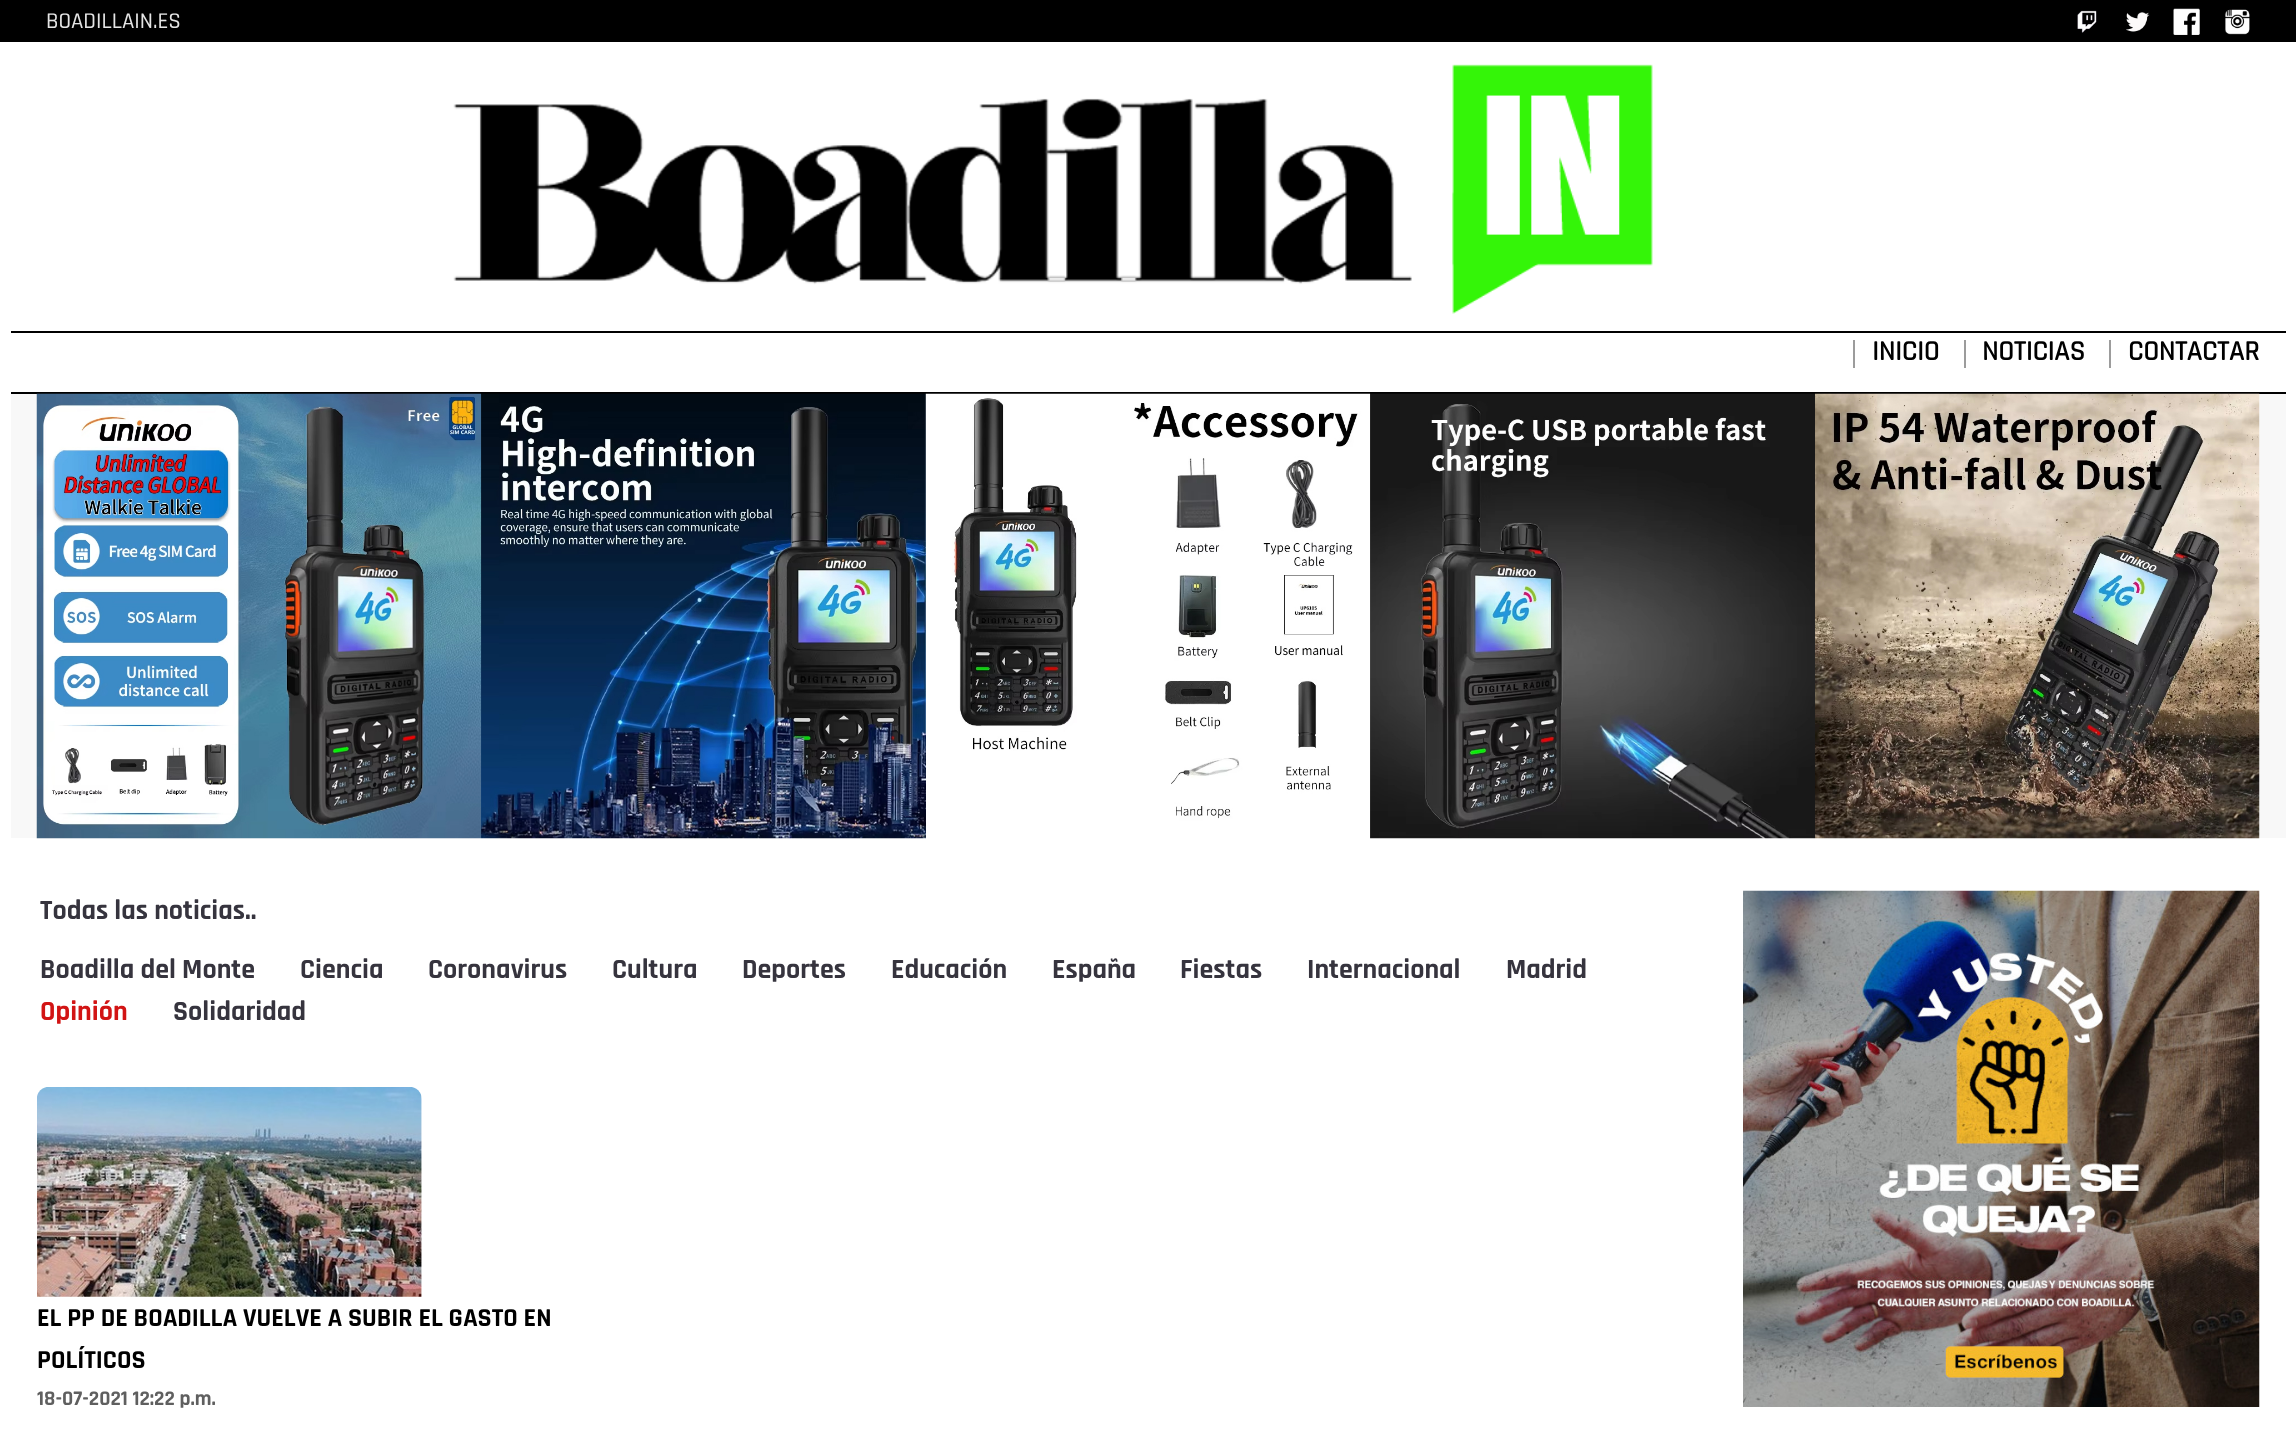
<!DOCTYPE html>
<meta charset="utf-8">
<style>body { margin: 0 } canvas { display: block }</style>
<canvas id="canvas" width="2296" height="1432"></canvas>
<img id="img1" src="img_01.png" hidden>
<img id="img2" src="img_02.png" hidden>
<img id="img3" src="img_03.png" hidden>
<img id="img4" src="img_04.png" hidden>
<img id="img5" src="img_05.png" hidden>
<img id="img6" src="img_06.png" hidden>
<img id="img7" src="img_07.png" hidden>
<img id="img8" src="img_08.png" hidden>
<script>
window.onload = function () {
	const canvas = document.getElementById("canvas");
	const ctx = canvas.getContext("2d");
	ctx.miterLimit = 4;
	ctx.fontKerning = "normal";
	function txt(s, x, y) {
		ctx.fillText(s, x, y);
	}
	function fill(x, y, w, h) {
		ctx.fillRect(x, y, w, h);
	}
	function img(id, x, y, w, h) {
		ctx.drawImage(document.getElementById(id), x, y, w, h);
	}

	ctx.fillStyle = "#FFFFFF";
	fill(0, 0, 2296, 1432);
	ctx.fillStyle = "#000000";
	fill(0, 0, 2296, 42);
	img("img1", 2077, 10, 20, 23);
	img("img2", 2126, 12, 24, 20);
	img("img3", 2173, 8, 27, 27);
	img("img4", 2224, 9, 26, 26);
	img("img5", 453, 64, 1200, 250);
	fill(11, 331, 2275, 2);
	ctx.fillStyle = "#9C9C9C";
	fill(1853, 340, 2, 28);
	fill(1964, 340, 2, 28);
	fill(2109, 340, 2, 28);
	ctx.fillStyle = "#F8F8F8";
	fill(11, 394, 2275, 444);
	ctx.fillStyle = "#000000";
	fill(11, 392, 2275, 2);
	img("img6", 36, 393, 2224, 446);
	img("img7", 37, 1087, 385, 210);
	img("img8", 1743, 890, 517, 517);
	ctx.font = "500 22.75px Rajdhani";
	ctx.fillStyle = "#E5E5E5";
	txt("BOADILLAIN.ES", 46, 28);
	ctx.font = "bold 28px Rajdhani";
	ctx.fillStyle = "#000000";
	txt("INICIO", 1872, 360);
	txt("NOTICIAS", 1982, 360);
	txt("CONTACTAR", 2128, 360);
	ctx.font = "bold 28px 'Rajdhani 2'";
	ctx.fillStyle = "#36343E";
	txt("Todas las noticias..", 40, 919);
	txt("Boadilla del Monte", 40, 978);
	txt("Ciencia", 300, 978);
	txt("Coronavirus", 428, 978);
	txt("Cultura", 612, 978);
	txt("Deportes", 742, 978);
	txt("Educación", 891, 978);
	txt("España", 1052, 978);
	txt("Fiestas", 1180, 978);
	txt("Internacional", 1307, 978);
	txt("Madrid", 1506, 978);
	ctx.fillStyle = "#D21414";
	txt("Opinión", 40, 1020);
	ctx.fillStyle = "#36343E";
	txt("Solidaridad", 173, 1020);
	ctx.font = "bold 26.25px 'Rajdhani 2'";
	ctx.fillStyle = "#000000";
	txt("EL PP DE BOADILLA VUELVE A SUBIR EL GASTO EN", 37, 1326);
	txt("POLÍTICOS", 37, 1368);
	ctx.font = "bold 21px 'Rajdhani 2'";
	ctx.fillStyle = "#5F5F5F";
	txt("18-07-2021 12:22 p.m.", 37, 1405);
};
</script>
